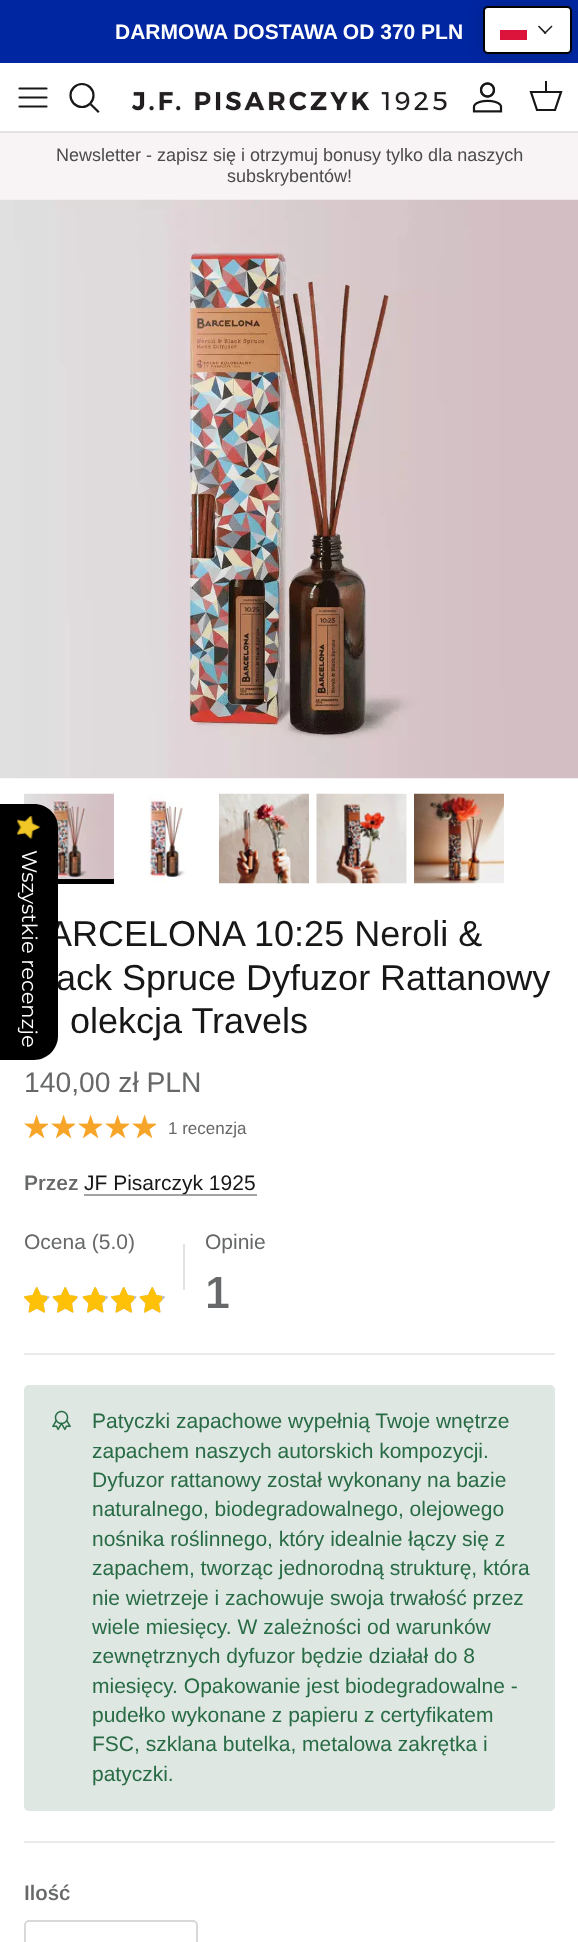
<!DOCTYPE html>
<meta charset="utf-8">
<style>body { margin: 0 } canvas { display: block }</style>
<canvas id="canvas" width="578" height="1942"></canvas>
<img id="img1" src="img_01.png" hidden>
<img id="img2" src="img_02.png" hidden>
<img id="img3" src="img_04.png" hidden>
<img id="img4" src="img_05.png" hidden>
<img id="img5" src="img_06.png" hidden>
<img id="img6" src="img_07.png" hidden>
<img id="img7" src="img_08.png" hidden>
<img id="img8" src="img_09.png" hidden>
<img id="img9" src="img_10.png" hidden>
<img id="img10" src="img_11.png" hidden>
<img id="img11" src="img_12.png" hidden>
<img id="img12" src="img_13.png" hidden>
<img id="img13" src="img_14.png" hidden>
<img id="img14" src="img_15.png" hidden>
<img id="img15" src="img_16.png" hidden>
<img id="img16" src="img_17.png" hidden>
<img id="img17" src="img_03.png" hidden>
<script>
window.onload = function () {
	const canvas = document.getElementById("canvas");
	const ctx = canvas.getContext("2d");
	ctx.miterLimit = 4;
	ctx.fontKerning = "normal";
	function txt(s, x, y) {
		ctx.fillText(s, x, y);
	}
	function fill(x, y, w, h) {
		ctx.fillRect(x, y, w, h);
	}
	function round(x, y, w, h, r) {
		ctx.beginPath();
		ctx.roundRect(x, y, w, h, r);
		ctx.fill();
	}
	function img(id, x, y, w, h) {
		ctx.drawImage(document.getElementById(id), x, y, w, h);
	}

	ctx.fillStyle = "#FFFFFF";
	fill(0, 0, 578, 1942);
	ctx.fillStyle = "#0026A1";
	fill(0, 0, 578, 63);
	ctx.fillStyle = "rgba(0, 0, 0, 0.15)";
	ctx.filter = "blur(7.5px)";
	ctx.beginPath();
	ctx.roundRect(483, 6, 89, 48, 5);
	ctx.fill();
	ctx.filter = "none";
	ctx.fillStyle = "#FFFFFF";
	ctx.beginPath();
	ctx.roundRect(484, 7, 87, 46, 4);
	ctx.fill();
	ctx.strokeStyle = "#000000";
	ctx.lineWidth = 2;
	ctx.stroke();
	ctx.fillStyle = "#DC143C";
	fill(500, 30, 27, 10);
	ctx.fillStyle = "#1A1A1A";
	ctx.beginPath();
	ctx.moveTo(551.5, 25.5);
	ctx.lineTo(552.5, 26.5);
	ctx.lineTo(545, 34);
	ctx.lineTo(544, 33);
	ctx.closePath();
	ctx.fill();
	ctx.beginPath();
	ctx.moveTo(539, 25.5);
	ctx.lineTo(546.5, 33);
	ctx.lineTo(545, 34);
	ctx.lineTo(538, 26.5);
	ctx.closePath();
	ctx.fill();
	ctx.fillStyle = "#E2E2E2";
	fill(0, 131, 578, 2);
	ctx.beginPath();
	ctx.moveTo(19.5, 97.5);
	ctx.lineTo(46.5, 97.5);
	ctx.moveTo(19.5, 88.5);
	ctx.lineTo(46.5, 88.5);
	ctx.moveTo(19.5, 106.5);
	ctx.lineTo(46.5, 106.5);
	ctx.strokeStyle = "#171717";
	ctx.lineWidth = 2.2;
	ctx.lineCap = "round";
	ctx.lineJoin = "round";
	ctx.stroke();
	ctx.beginPath();
	ctx.arc(82, 95.5, 11.5, 0, Math.PI * 2);
	ctx.stroke();
	ctx.beginPath();
	ctx.moveTo(91.5, 105);
	ctx.lineTo(98, 111.5);
	ctx.lineCap = "square";
	ctx.lineJoin = "miter";
	ctx.stroke();
	img("img1", 132, 90, 315, 21);
	img("img2", 472, 82, 31, 31);
	ctx.beginPath();
	ctx.moveTo(531, 92);
	ctx.lineTo(561, 92);
	ctx.lineTo(555, 110);
	ctx.lineTo(537, 110);
	ctx.closePath();
	ctx.lineCap = "butt";
	ctx.stroke();
	ctx.fillStyle = "#171717";
	fill(545, 81, 2, 12);
	ctx.fillStyle = "#F8F4F5";
	fill(0, 133, 578, 67);
	img("img3", 0, 199, 578, 580);
	img("img4", 24, 793, 90, 86);
	ctx.fillStyle = "#000000";
	fill(58, 879, 56, 5);
	img("img5", 148, 794, 38, 89);
	img("img6", 219, 793, 90, 91);
	img("img7", 316, 793, 91, 91);
	img("img8", 414, 793, 90, 91);
	img("img9", 24, 1115, 24, 23);
	img("img9", 51, 1115, 24, 23);
	img("img9", 78, 1115, 24, 23);
	img("img9", 105, 1115, 24, 23);
	img("img9", 132, 1115, 24, 23);
	img("img10", 24, 1115, 24, 24);
	img("img10", 51, 1115, 24, 24);
	img("img10", 78, 1115, 24, 24);
	img("img10", 105, 1115, 24, 24);
	img("img10", 132, 1115, 24, 24);
	ctx.fillStyle = "#A2A2A2";
	fill(84, 1194, 173, 2);
	img("img11", 24, 1287, 26, 26);
	img("img12", 24, 1287, 23, 26);
	img("img13", 52, 1287, 26, 26);
	img("img14", 53, 1287, 24, 26);
	img("img13", 82, 1287, 26, 26);
	img("img15", 83, 1287, 22, 26);
	img("img11", 111, 1287, 26, 26);
	img("img12", 111, 1287, 23, 26);
	img("img13", 139, 1287, 26, 26);
	img("img15", 140, 1287, 22, 26);
	ctx.fillStyle = "#E3E3E3";
	fill(183, 1244, 2, 46);
	ctx.fillStyle = "#EAEAEA";
	fill(24, 1353, 531, 2);
	ctx.fillStyle = "#DEE7E2";
	round(24, 1385, 531, 426, 5);
	img("img16", 52, 1410, 19, 21);
	ctx.fillStyle = "#EAEAEA";
	fill(24, 1841, 531, 2);
	ctx.beginPath();
	ctx.roundRect(25, 1921, 172, 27, 4);
	ctx.strokeStyle = "#D9D9DA";
	ctx.lineWidth = 2;
	ctx.stroke();
	ctx.font = "bold 21px Arimo";
	ctx.fillStyle = "#FFFFFF";
	txt("DARMOWA DOSTAWA OD 370 PLN", 115, 39);
	ctx.font = "18px Arimo";
	ctx.fillStyle = "#4C4B4B";
	txt("Newsletter - zapisz się i otrzymuj bonusy tylko dla naszych", 56, 161);
	txt("subskrybentów!", 227, 182);
	ctx.font = "36px Arimo";
	ctx.fillStyle = "#171717";
	txt("ARCELONA 10:25 Neroli &", 48, 946);
	txt("ack Spruce Dyfuzor Rattanowy", 56, 990);
	ctx.fillStyle = "#000000";
	ctx.beginPath();
	ctx.moveTo(58, 828);
	ctx.lineTo(58, 1036);
	ctx.bezierCurveTo(58, 1049, 47, 1060, 34, 1060);
	ctx.lineTo(0, 1060);
	ctx.lineTo(0, 804);
	ctx.lineTo(34, 804);
	ctx.bezierCurveTo(47, 804, 58, 814, 58, 828);
	ctx.closePath();
	ctx.fill();
	ctx.font = "100 21px Montserrat";
	ctx.fillStyle = "#FFFFFF";
	ctx.save();
	ctx.translate(22, 850);
	ctx.rotate(90 * Math.PI / 180);
	ctx.fillText("Wszystkie recenzje", 0, 0);
	ctx.restore();
	img("img17", 17, 816, 24, 23);
	ctx.font = "36px Arimo";
	ctx.fillStyle = "#171717";
	txt("olekcja Travels", 70, 1033);
	ctx.font = "28.25px Arimo";
	ctx.fillStyle = "#676869";
	txt("140,00 zł PLN", 24, 1092);
	ctx.font = "17px Arimo";
	txt("1 recenzja", 168, 1134);
	ctx.font = "600 21px Arimo";
	txt("Przez", 24, 1190);
	ctx.font = "21px Arimo";
	ctx.fillStyle = "#171717";
	txt("JF Pisarczyk 1925", 84, 1190);
	ctx.fillStyle = "#676869";
	txt("Ocena (5.0)", 24, 1249);
	txt("Opinie", 205, 1249);
	ctx.font = "600 45px Arimo";
	txt("1", 205, 1308);
	ctx.font = "21px Arimo";
	ctx.fillStyle = "#286B45";
	txt("Patyczki zapachowe wypełnią Twoje wnętrze", 92, 1428);
	txt("zapachem naszych autorskich kompozycji.", 92, 1458);
	txt("Dyfuzor rattanowy został wykonany na bazie", 92, 1487);
	txt("naturalnego, biodegradowalnego, olejowego", 92, 1516);
	txt("nośnika roślinnego, który idealnie łączy się z", 92, 1546);
	txt("zapachem, tworząc jednorodną strukturę, która", 92, 1575);
	txt("nie wietrzeje i zachowuje swoja trwałość przez", 92, 1605);
	txt("wiele miesięcy. W zależności od warunków", 92, 1634);
	txt("zewnętrznych dyfuzor będzie działał do 8", 92, 1663);
	txt("miesięcy. Opakowanie jest biodegradowalne -", 92, 1693);
	txt("pudełko wykonane z papieru z certyfikatem", 92, 1722);
	txt("FSC, szklana butelka, metalowa zakrętka i", 92, 1751);
	txt("patyczki.", 92, 1781);
	ctx.font = "600 21px Arimo";
	ctx.fillStyle = "#676869";
	txt("Ilość", 24, 1900);
};
</script>
